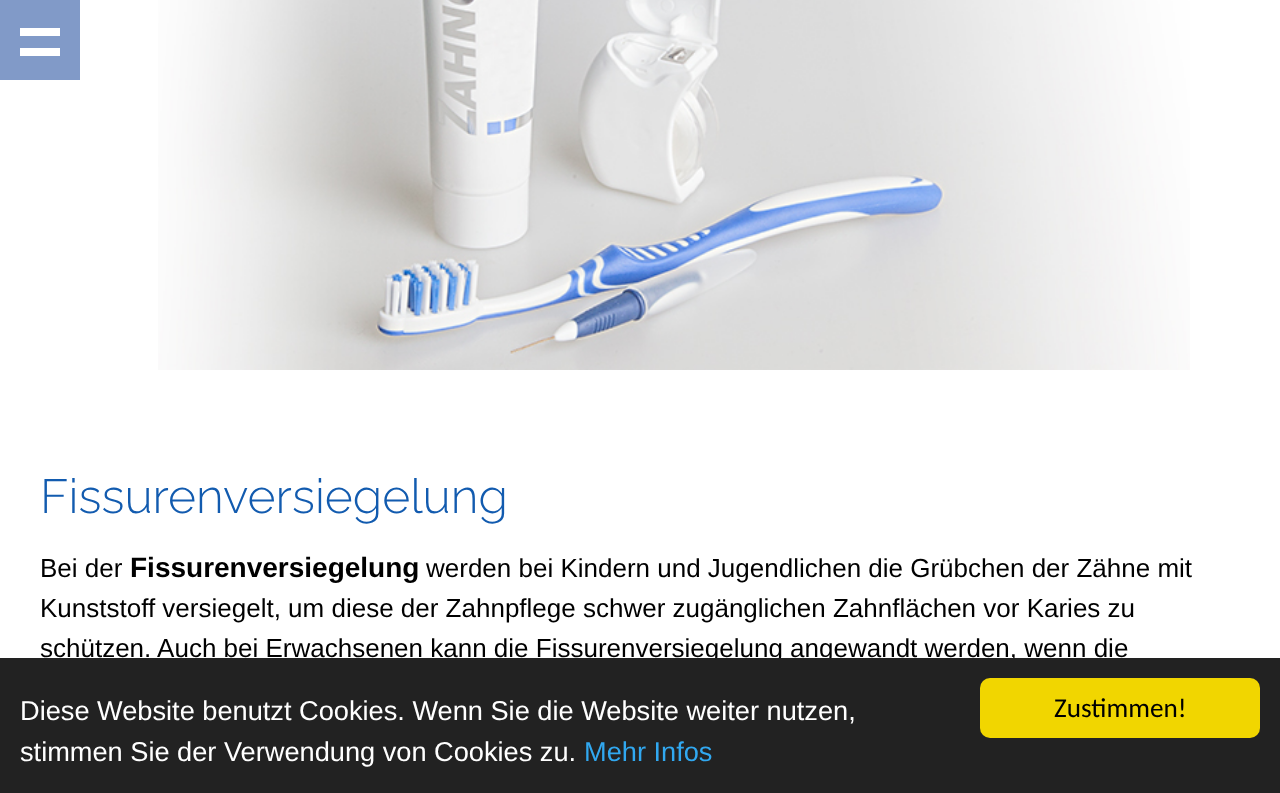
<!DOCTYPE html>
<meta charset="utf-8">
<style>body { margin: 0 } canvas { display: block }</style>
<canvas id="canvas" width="1280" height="793"></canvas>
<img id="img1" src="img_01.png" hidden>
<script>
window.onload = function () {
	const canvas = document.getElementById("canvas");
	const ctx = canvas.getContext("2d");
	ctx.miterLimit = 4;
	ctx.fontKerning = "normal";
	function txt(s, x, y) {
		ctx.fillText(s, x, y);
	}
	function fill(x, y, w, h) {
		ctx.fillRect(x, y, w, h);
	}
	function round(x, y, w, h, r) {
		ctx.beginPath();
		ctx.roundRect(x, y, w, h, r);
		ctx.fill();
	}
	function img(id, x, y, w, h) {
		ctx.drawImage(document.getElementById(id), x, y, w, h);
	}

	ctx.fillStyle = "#FFFFFF";
	fill(0, 0, 1280, 793);
	ctx.fillStyle = "#819AC8";
	fill(0, 0, 80, 80);
	ctx.fillStyle = "#FFFFFF";
	fill(20, 28, 40, 8);
	fill(20, 48, 40, 8);
	img("img1", 158, 0, 1032, 370);
	ctx.font = "100 48px Raleway";
	ctx.fillStyle = "#125BAF";
	txt("Fissurenversiegelung", 40, 513);
	ctx.font = "26px Liberation Sans";
	ctx.fillStyle = "#000000";
	txt("Bei der", 40, 577);
	ctx.font = "bold 28px Liberation Sans";
	txt("Fissurenversiegelung", 130, 577);
	ctx.font = "26px Liberation Sans";
	txt("werden bei Kindern und Jugendlichen die Grübchen der Zähne mit", 426, 577);
	txt("Kunststoff versiegelt, um diese der Zahnpflege schwer zugänglichen Zahnflächen vor Karies zu", 40, 617);
	txt("schützen. Auch bei Erwachsenen kann die Fissurenversiegelung angewandt werden, wenn die", 40, 657);
	ctx.fillStyle = "#222222";
	fill(0, 658, 1280, 135);
	ctx.font = "27.2px Liberation Sans";
	ctx.fillStyle = "#FFFFFF";
	txt("Diese Website benutzt Cookies. Wenn Sie die Website weiter nutzen,", 20, 720);
	txt("stimmen Sie der Verwendung von Cookies zu.", 20, 761);
	ctx.fillStyle = "#31A8F0";
	txt("Mehr Infos", 584, 761);
	ctx.fillStyle = "#F1D600";
	round(980, 678, 280, 60, 10);
	ctx.font = "27.2px Carlito";
	ctx.fillStyle = "#000000";
	txt("Zustimmen!", 1054, 717);
};
</script>
